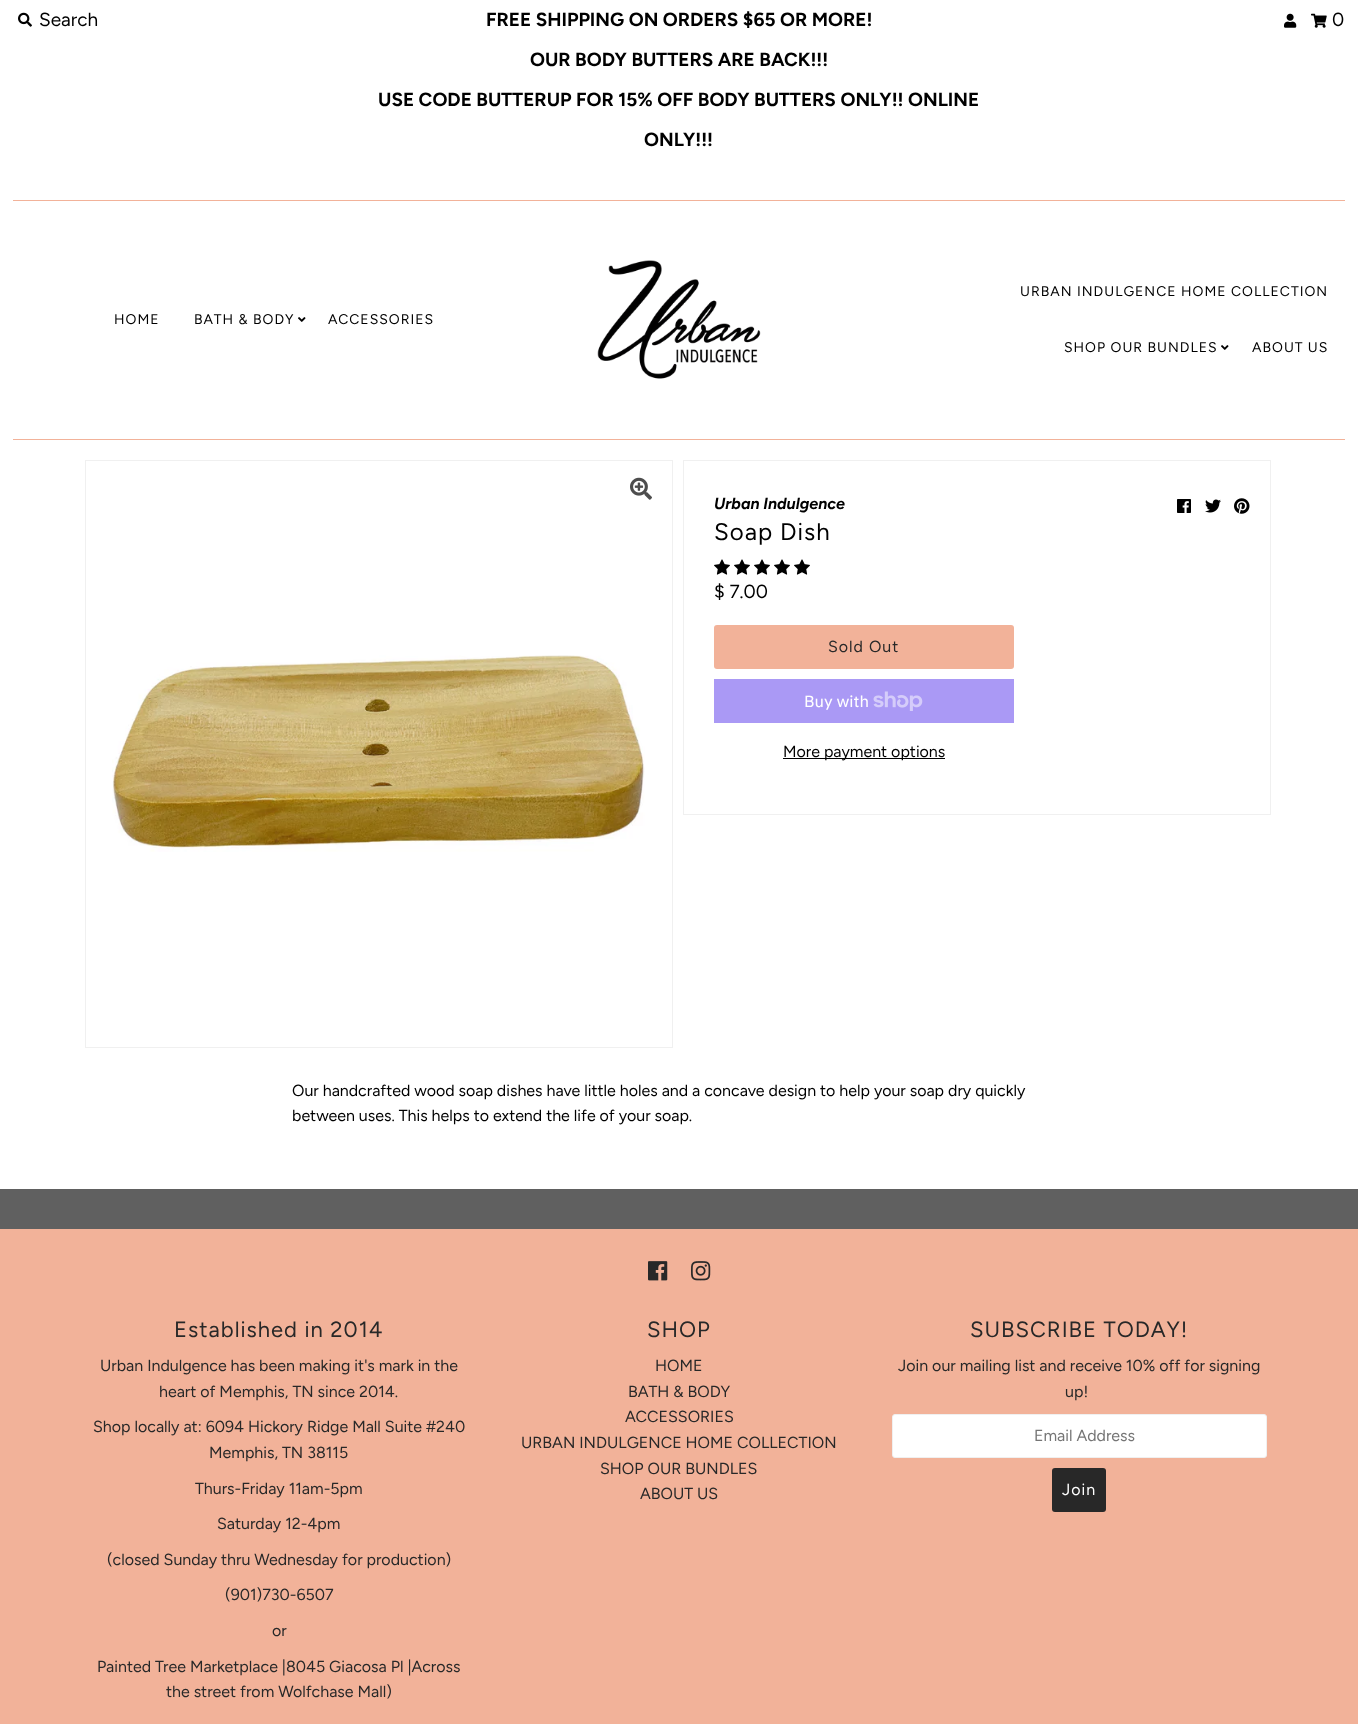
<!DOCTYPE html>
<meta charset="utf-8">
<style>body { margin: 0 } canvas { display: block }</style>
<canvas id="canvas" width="1358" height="1724"></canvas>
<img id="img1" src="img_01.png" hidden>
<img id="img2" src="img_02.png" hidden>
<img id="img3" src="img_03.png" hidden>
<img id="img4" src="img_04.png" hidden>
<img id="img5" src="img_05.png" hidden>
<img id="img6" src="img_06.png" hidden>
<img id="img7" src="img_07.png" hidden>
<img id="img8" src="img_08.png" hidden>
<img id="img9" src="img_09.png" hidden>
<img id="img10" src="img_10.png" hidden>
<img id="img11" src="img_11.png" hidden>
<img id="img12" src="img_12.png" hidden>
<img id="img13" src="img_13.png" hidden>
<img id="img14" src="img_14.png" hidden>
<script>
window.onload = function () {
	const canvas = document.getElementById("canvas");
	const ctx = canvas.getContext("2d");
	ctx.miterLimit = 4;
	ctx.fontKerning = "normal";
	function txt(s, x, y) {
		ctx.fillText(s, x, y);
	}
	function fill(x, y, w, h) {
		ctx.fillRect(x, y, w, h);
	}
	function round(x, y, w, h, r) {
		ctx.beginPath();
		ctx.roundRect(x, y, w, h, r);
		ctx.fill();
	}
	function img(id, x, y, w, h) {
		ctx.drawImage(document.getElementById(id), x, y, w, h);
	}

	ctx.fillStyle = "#FFFFFF";
	fill(0, 0, 1358, 1724);
	img("img1", 18, 12, 14, 15);
	img("img2", 1284, 13, 13, 15);
	img("img3", 1311, 13, 16, 15);
	ctx.fillStyle = "#F2B299";
	fill(13, 200, 1332, 1);
	img("img4", 298, 317, 8, 5);
	img("img5", 597, 260, 164, 119);
	img("img4", 1221, 345, 8, 5);
	fill(13, 439, 1332, 1);
	ctx.strokeStyle = "#F0F0F0";
	ctx.strokeRect(85.5, 460.5, 587, 587);
	img("img6", 112, 655, 533, 197);
	img("img7", 630, 477, 22, 23);
	ctx.strokeRect(683.5, 460.5, 587, 354);
	img("img8", 1177, 499, 14, 14);
	img("img9", 1205, 499, 16, 14);
	img("img10", 1234, 498, 16, 16);
	img("img11", 714, 559, 16, 16);
	img("img11", 734, 559, 16, 16);
	img("img11", 754, 559, 16, 16);
	img("img11", 774, 559, 16, 16);
	img("img11", 794, 559, 16, 16);
	round(714, 625, 300, 44, 3);
	ctx.fillStyle = "#AA99F5";
	fill(714, 679, 300, 44);
	img("img12", 873, 691, 50, 20);
	ctx.fillStyle = "#000000";
	fill(783, 758, 162, 1);
	ctx.fillStyle = "#606060";
	fill(0, 1189, 1358, 40);
	ctx.fillStyle = "#F2B299";
	fill(0, 1229, 1358, 495);
	img("img13", 648, 1261, 20, 20);
	img("img14", 691, 1261, 20, 20);
	ctx.fillStyle = "#FFFFFF";
	ctx.beginPath();
	ctx.roundRect(892.5, 1414.5, 374, 43, 2.5);
	ctx.fill();
	ctx.stroke();
	ctx.fillStyle = "#282828";
	round(1052, 1468, 54, 44, 3);
	ctx.font = "19px Figtree";
	ctx.fillStyle = "#000000";
	txt("Search", 39, 26);
	ctx.font = "bold 19px Figtree";
	txt("FREE SHIPPING ON ORDERS $65 OR MORE!", 486, 26);
	txt("OUR BODY BUTTERS ARE BACK!!!", 530, 66);
	txt("USE CODE BUTTERUP FOR 15% OFF BODY BUTTERS ONLY!! ONLINE", 378, 106);
	txt("ONLY!!!", 644, 146);
	ctx.font = "19px Figtree";
	txt("0", 1332, 26);
	ctx.letterSpacing = "1px";
	ctx.font = "14px Figtree";
	txt("HOME", 114, 324);
	txt("BATH & BODY", 194, 324);
	txt("ACCESSORIES", 328, 324);
	txt("URBAN INDULGENCE HOME COLLECTION", 1020, 296);
	txt("SHOP OUR BUNDLES", 1064, 352);
	txt("ABOUT US", 1252, 352);
	ctx.letterSpacing = "0px";
	ctx.font = "italic bold 16px Figtree";
	txt("Urban Indulgence", 714, 509);
	ctx.letterSpacing = "1px";
	ctx.font = "24px Figtree";
	txt("Soap Dish", 714, 540);
	ctx.letterSpacing = "0px";
	ctx.font = "19px Figtree";
	txt("$ 7.00", 714, 598);
	ctx.letterSpacing = "1px";
	ctx.font = "16px Figtree";
	ctx.fillStyle = "#282828";
	txt("Sold Out", 828, 652);
	ctx.letterSpacing = "0px";
	ctx.font = "16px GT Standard";
	ctx.fillStyle = "#FFFFFF";
	txt("Buy with", 804, 707);
	ctx.font = "16px Figtree";
	ctx.fillStyle = "#000000";
	txt("More payment options", 783, 757);
	txt("Our handcrafted wood soap dishes have little holes and a concave design to help your soap dry quickly", 292, 1096);
	txt("between uses. This helps to extend the life of your soap.", 292, 1121);
	ctx.letterSpacing = "1px";
	ctx.font = "22px Figtree";
	ctx.fillStyle = "#282828";
	txt("Established in 2014", 174, 1337);
	ctx.letterSpacing = "0px";
	ctx.font = "16px Figtree";
	txt("Urban Indulgence has been making it's mark in the", 100, 1371);
	txt("heart of Memphis, TN since 2014.", 159, 1397);
	txt("Shop locally at: 6094 Hickory Ridge Mall Suite #240", 93, 1432);
	txt("Memphis, TN 38115", 209, 1458);
	txt("Thurs-Friday 11am-5pm", 195, 1494);
	txt("Saturday 12-4pm", 217, 1529);
	txt("(closed Sunday thru Wednesday for production)", 107, 1565);
	txt("(901)730-6507", 225, 1600);
	txt("or", 272, 1636);
	txt("Painted Tree Marketplace |8045 Giacosa Pl |Across", 97, 1672);
	txt("the street from Wolfchase Mall)", 166, 1697);
	ctx.letterSpacing = "1px";
	ctx.font = "22px Figtree";
	txt("SHOP", 647, 1337);
	ctx.letterSpacing = "0px";
	ctx.font = "16px Figtree";
	txt("HOME", 655, 1371);
	txt("BATH & BODY", 628, 1397);
	txt("ACCESSORIES", 625, 1422);
	txt("URBAN INDULGENCE HOME COLLECTION", 521, 1448);
	txt("SHOP OUR BUNDLES", 600, 1474);
	txt("ABOUT US", 640, 1499);
	ctx.letterSpacing = "1px";
	ctx.font = "22px Figtree";
	txt("SUBSCRIBE TODAY!", 970, 1337);
	ctx.letterSpacing = "0px";
	ctx.font = "16px Figtree";
	txt("Join our mailing list and receive 10% off for signing", 898, 1371);
	txt("up!", 1065, 1397);
	ctx.fillStyle = "#757575";
	txt("Email Address", 1034, 1441);
	ctx.letterSpacing = "1px";
	ctx.fillStyle = "#FFFFFF";
	txt("Join", 1062, 1495);
};
</script>
